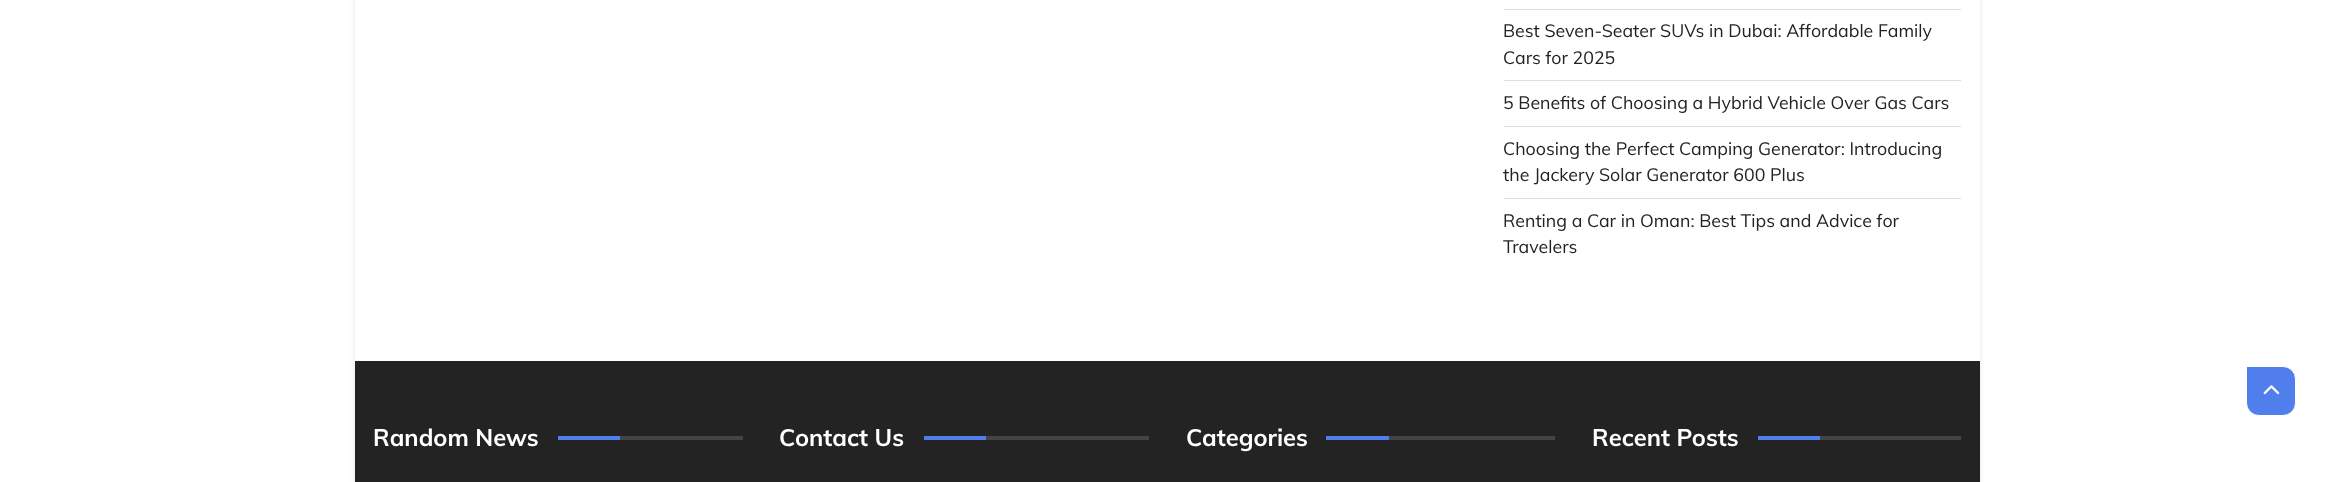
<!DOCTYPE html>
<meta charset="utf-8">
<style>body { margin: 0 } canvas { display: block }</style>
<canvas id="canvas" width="2333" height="482"></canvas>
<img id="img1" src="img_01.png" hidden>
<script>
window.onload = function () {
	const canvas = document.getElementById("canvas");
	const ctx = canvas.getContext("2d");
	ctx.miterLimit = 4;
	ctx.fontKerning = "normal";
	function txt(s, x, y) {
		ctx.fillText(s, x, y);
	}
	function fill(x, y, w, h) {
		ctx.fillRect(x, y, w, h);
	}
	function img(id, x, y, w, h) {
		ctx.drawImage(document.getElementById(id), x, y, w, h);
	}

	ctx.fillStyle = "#FFFFFF";
	fill(0, 0, 2333, 482);
	ctx.save();
	ctx.beginPath();
	ctx.moveTo(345, 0);
	ctx.lineTo(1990, 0);
	ctx.lineTo(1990, 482);
	ctx.lineTo(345, 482);
	ctx.closePath();
	ctx.moveTo(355, -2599);
	ctx.lineTo(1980, -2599);
	ctx.lineTo(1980, 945);
	ctx.lineTo(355, 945);
	ctx.closePath();
	ctx.clip("evenodd");
	ctx.fillStyle = "#080808";
	ctx.filter = "blur(6px)";
	ctx.beginPath();
	ctx.rect(364, -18, 1607, 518);
	ctx.fill();
	ctx.filter = "none";
	ctx.restore();
	ctx.fillStyle = "#DFDFDF";
	fill(1504, 9, 457, 1);
	fill(1504, 80, 457, 1);
	fill(1504, 126, 457, 1);
	fill(1504, 198, 457, 1);
	ctx.fillStyle = "#507FED";
	ctx.beginPath();
	ctx.roundRect(2246.5, 366.5, 49, 49, [0, 12.5, 12.5, 12.5]);
	ctx.fill();
	ctx.strokeStyle = "#FFFFFF";
	ctx.stroke();
	img("img1", 2263, 385, 17, 10);
	ctx.fillStyle = "#232323";
	fill(355, 361, 1625, 121);
	ctx.fillStyle = "#507FED";
	fill(558, 436, 62, 4);
	ctx.fillStyle = "#444444";
	fill(620, 436, 123, 4);
	ctx.fillStyle = "#507FED";
	fill(924, 436, 62, 4);
	ctx.fillStyle = "#444444";
	fill(986, 436, 163, 4);
	ctx.fillStyle = "#507FED";
	fill(1326, 436, 63, 4);
	ctx.fillStyle = "#444444";
	fill(1389, 436, 166, 4);
	ctx.fillStyle = "#507FED";
	fill(1758, 436, 62, 4);
	ctx.fillStyle = "#444444";
	fill(1820, 436, 141, 4);
	ctx.font = "17.8px Muli";
	ctx.fillStyle = "#202224";
	txt("Best Seven-Seater SUVs in Dubai: Affordable Family", 1503, 37);
	txt("Cars for 2025", 1503, 64);
	txt("5 Benefits of Choosing a Hybrid Vehicle Over Gas Cars", 1503, 109);
	txt("Choosing the Perfect Camping Generator: Introducing", 1503, 155);
	txt("the Jackery Solar Generator 600 Plus", 1503, 181);
	txt("Renting a Car in Oman: Best Tips and Advice for", 1503, 227);
	txt("Travelers", 1503, 253);
	ctx.font = "bold 23.75px Muli";
	ctx.fillStyle = "#FFFFFF";
	txt("Random News", 373, 446);
	txt("Contact Us", 779, 446);
	txt("Categories", 1186, 446);
	txt("Recent Posts", 1592, 446);
};
</script>
